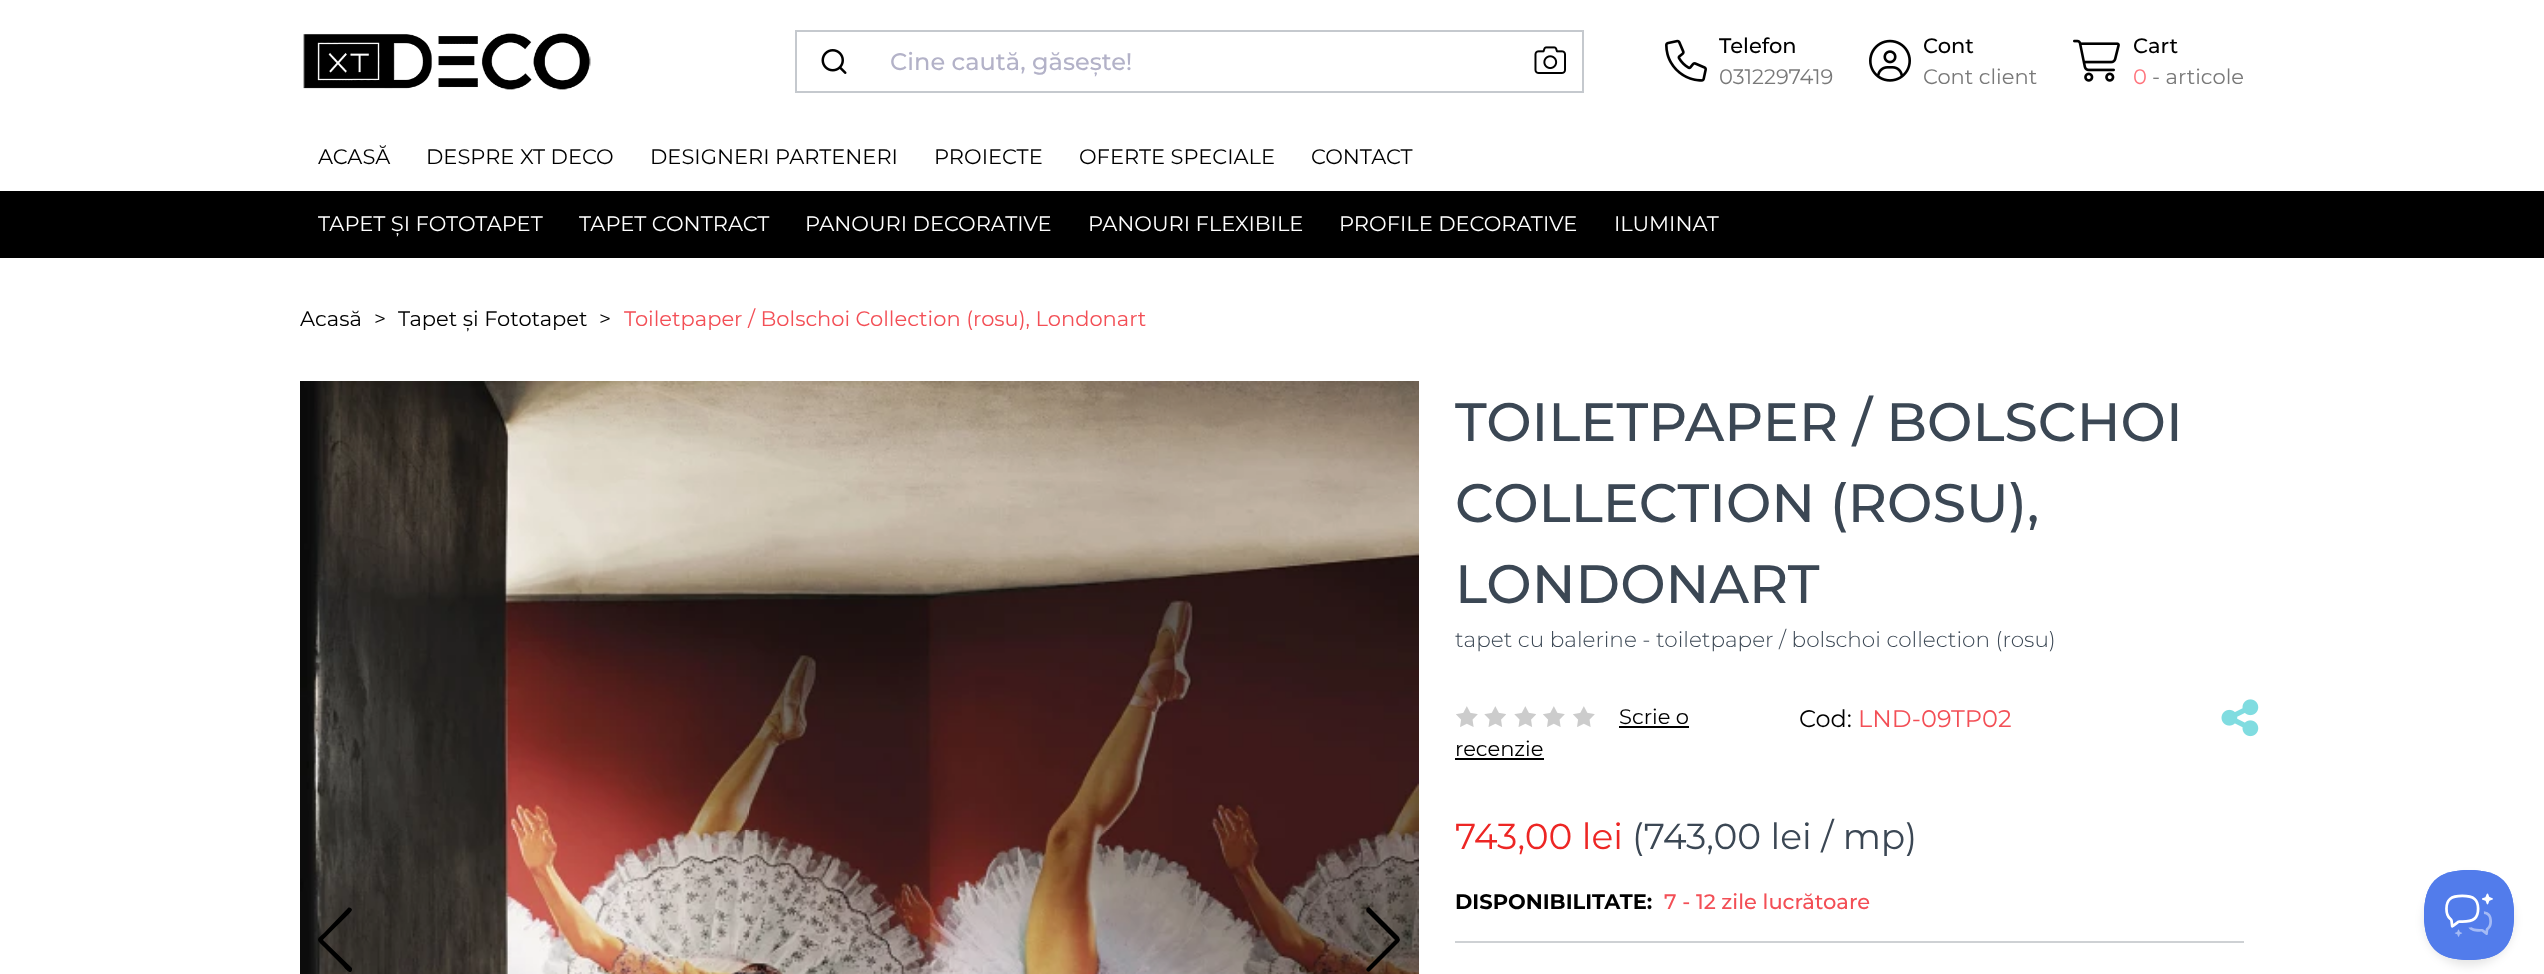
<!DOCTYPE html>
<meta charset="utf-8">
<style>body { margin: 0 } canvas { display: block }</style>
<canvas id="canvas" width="2544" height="974"></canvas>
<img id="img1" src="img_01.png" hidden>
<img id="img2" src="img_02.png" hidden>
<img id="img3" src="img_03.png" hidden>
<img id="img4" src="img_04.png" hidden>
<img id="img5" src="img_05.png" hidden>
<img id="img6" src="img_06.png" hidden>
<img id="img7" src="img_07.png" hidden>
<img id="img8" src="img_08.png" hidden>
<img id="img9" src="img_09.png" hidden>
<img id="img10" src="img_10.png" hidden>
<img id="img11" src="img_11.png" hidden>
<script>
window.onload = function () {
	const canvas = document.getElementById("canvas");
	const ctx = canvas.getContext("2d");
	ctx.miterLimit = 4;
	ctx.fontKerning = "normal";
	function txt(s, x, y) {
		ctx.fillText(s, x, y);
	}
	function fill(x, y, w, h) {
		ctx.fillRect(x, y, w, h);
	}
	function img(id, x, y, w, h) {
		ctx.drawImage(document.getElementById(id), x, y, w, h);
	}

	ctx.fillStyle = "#FFFFFF";
	fill(0, 0, 2544, 974);
	img("img1", 303, 33, 288, 57);
	ctx.strokeStyle = "#C5C9CE";
	ctx.lineWidth = 2;
	ctx.strokeRect(796, 31, 787, 61);
	img("img2", 821, 49, 26, 25);
	img("img3", 1534, 46, 32, 28);
	img("img4", 1665, 39, 42, 43);
	img("img5", 1869, 39, 42, 43);
	img("img6", 2073, 39, 47, 43);
	ctx.fillStyle = "#000000";
	fill(0, 191, 2544, 67);
	img("img7", 300, 381, 1119, 593);
	ctx.beginPath();
	ctx.moveTo(348, 908);
	ctx.bezierCurveTo(349, 907, 352, 908, 352, 910);
	ctx.bezierCurveTo(352, 912, 326, 936, 323, 940);
	ctx.lineTo(352, 968);
	ctx.lineTo(352, 970);
	ctx.bezierCurveTo(351, 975, 346, 970, 343, 966);
	ctx.lineTo(324, 947);
	ctx.bezierCurveTo(316, 939, 316, 940, 324, 933);
	ctx.closePath();
	ctx.fill();
	ctx.beginPath();
	ctx.moveTo(1367, 971);
	ctx.bezierCurveTo(1366, 970, 1366, 969, 1367, 968);
	ctx.lineTo(1395, 940);
	ctx.lineTo(1367, 912);
	ctx.bezierCurveTo(1366, 910, 1366, 909, 1367, 908);
	ctx.bezierCurveTo(1368, 907, 1369, 907, 1370, 908);
	ctx.lineTo(1399, 937);
	ctx.lineTo(1400, 940);
	ctx.lineTo(1399, 942);
	ctx.lineTo(1370, 971);
	ctx.bezierCurveTo(1369, 972, 1368, 972, 1367, 971);
	ctx.closePath();
	ctx.fill();
	img("img8", 1456, 706, 22, 21);
	img("img9", 1484, 706, 22, 21);
	img("img9", 1514, 706, 22, 21);
	img("img8", 1543, 706, 22, 21);
	img("img8", 1573, 706, 22, 21);
	fill(1619, 726, 70, 2);
	fill(1455, 758, 89, 2);
	img("img10", 2221, 699, 38, 38);
	ctx.fillStyle = "#CED1D4";
	fill(1455, 941, 789, 2);
	ctx.fillStyle = "rgba(0, 0, 0, 0.1)";
	ctx.filter = "blur(5px)";
	ctx.beginPath();
	ctx.roundRect(2424, 876, 90, 90, 45);
	ctx.fill();
	ctx.filter = "none";
	img("img11", 2424, 870, 90, 90);
	ctx.font = "100 24px Montserrat";
	ctx.fillStyle = "#B3B2C8";
	txt("Cine caută, găsește!", 890, 70);
	ctx.font = "100 21px Montserrat";
	ctx.fillStyle = "#000000";
	txt("Telefon", 1719, 53);
	ctx.font = "100 21px 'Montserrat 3'";
	ctx.fillStyle = "#797979";
	txt("0312297419", 1719, 84);
	ctx.font = "100 21px Montserrat";
	ctx.fillStyle = "#000000";
	txt("Cont", 1923, 53);
	ctx.font = "100 21px 'Montserrat 3'";
	ctx.fillStyle = "#797979";
	txt("Cont client", 1923, 84);
	ctx.font = "100 21px Montserrat";
	ctx.fillStyle = "#000000";
	txt("Cart", 2133, 53);
	ctx.font = "100 21px 'Montserrat 3'";
	ctx.fillStyle = "#FF737C";
	txt("0", 2133, 84);
	ctx.fillStyle = "#797979";
	txt("- articole", 2152, 84);
	ctx.fillStyle = "#000000";
	txt("ACASĂ", 318, 164);
	txt("DESPRE XT DECO", 426, 164);
	txt("DESIGNERI PARTENERI", 650, 164);
	txt("PROIECTE", 934, 164);
	txt("OFERTE SPECIALE", 1079, 164);
	txt("CONTACT", 1311, 164);
	ctx.fillStyle = "#FFFFFF";
	txt("TAPET ȘI FOTOTAPET", 318, 231);
	txt("TAPET CONTRACT", 579, 231);
	txt("PANOURI DECORATIVE", 805, 231);
	txt("PANOURI FLEXIBILE", 1088, 231);
	txt("PROFILE DECORATIVE", 1339, 231);
	txt("ILUMINAT", 1614, 231);
	ctx.fillStyle = "#000000";
	txt("Acasă", 300, 326);
	txt(">", 374, 326);
	txt("Tapet și Fototapet", 398, 326);
	txt(">", 599, 326);
	ctx.fillStyle = "#F34F56";
	txt("Toiletpaper / Bolschoi Collection (rosu), Londonart", 624, 326);
	ctx.font = "100 54px Montserrat";
	ctx.fillStyle = "#3B4754";
	txt("TOILETPAPER / BOLSCHOI", 1455, 441);
	txt("COLLECTION (ROSU),", 1455, 522);
	txt("LONDONART", 1455, 603);
	ctx.font = "100 21.6px 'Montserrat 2'";
	txt("tapet cu balerine - toiletpaper / bolschoi collection (rosu)", 1455, 647);
	ctx.font = "100 21px 'Montserrat 3'";
	ctx.fillStyle = "#000000";
	txt("Scrie o", 1619, 724);
	txt("recenzie", 1455, 756);
	ctx.font = "100 24px 'Montserrat 3'";
	txt("Cod:", 1799, 727);
	ctx.fillStyle = "#F34F56";
	txt("LND-09TP02", 1858, 727);
	ctx.font = "100 36px 'Montserrat 3'";
	ctx.fillStyle = "#ED2624";
	txt("743,00 lei", 1455, 849);
	ctx.fillStyle = "#3B4754";
	txt("(743,00 lei / mp)", 1632, 849);
	ctx.font = "100 21px 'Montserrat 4'";
	ctx.fillStyle = "#000000";
	txt("DISPONIBILITATE:", 1455, 909);
	ctx.font = "100 21px Montserrat";
	ctx.fillStyle = "#F34F56";
	txt("7 - 12 zile lucrătoare", 1664, 909);
};
</script>
